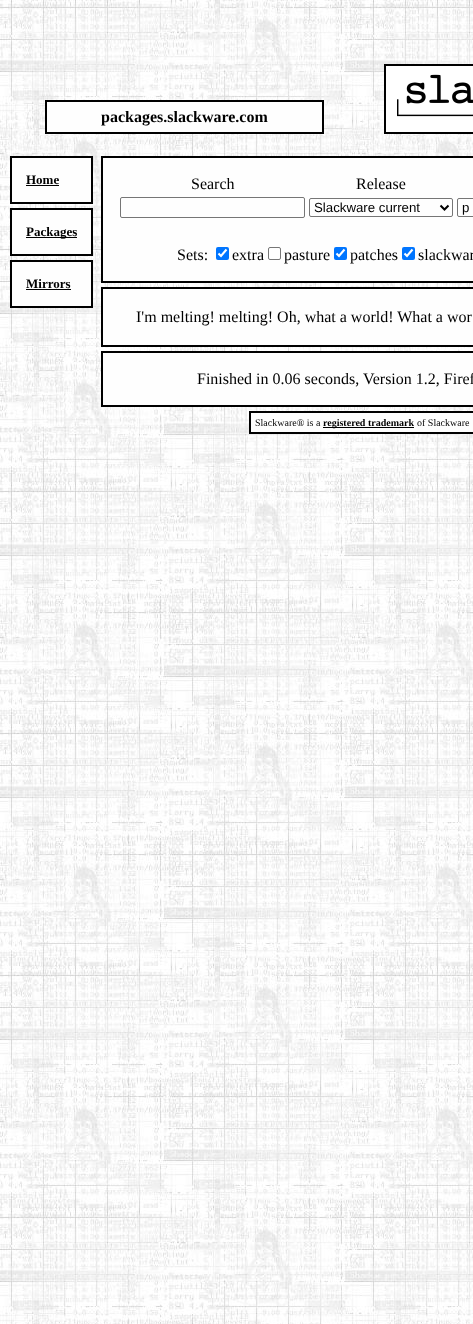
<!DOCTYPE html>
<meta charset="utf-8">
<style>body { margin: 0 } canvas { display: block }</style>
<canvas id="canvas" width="473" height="1324"></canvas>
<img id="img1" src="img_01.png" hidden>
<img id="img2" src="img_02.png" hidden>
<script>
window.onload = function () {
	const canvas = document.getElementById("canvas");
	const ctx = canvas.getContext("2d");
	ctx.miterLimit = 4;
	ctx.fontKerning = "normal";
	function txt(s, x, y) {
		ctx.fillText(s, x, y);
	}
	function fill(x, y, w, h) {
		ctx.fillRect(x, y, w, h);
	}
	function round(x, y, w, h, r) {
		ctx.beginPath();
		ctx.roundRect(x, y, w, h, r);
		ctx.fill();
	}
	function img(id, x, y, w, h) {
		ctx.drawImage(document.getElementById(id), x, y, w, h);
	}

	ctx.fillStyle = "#FFFFFF";
	fill(0, 0, 473, 1324);
	img("img1", 0, 0, 473, 1324);
	ctx.fillStyle = "#000000";
	fill(45, 100, 279, 34);
	ctx.fillStyle = "#FEFEFE";
	fill(47, 102, 275, 30);
	ctx.fillStyle = "#000000";
	fill(384, 64, 89, 70);
	ctx.fillStyle = "#FFFFFF";
	fill(386, 66, 87, 66);
	img("img2", 397, 74, 76, 43);
	ctx.fillStyle = "#000000";
	fill(10, 156, 83, 48);
	ctx.fillStyle = "#FEFEFE";
	fill(12, 158, 79, 44);
	ctx.fillStyle = "#000000";
	fill(26, 185, 33, 1);
	fill(10, 208, 83, 48);
	ctx.fillStyle = "#FEFEFE";
	fill(12, 210, 79, 44);
	ctx.fillStyle = "#000000";
	fill(26, 237, 51, 1);
	fill(10, 260, 83, 48);
	ctx.fillStyle = "#FEFEFE";
	fill(12, 262, 79, 44);
	ctx.fillStyle = "#000000";
	fill(26, 289, 45, 1);
	fill(101, 156, 372, 127);
	ctx.fillStyle = "#FEFEFE";
	fill(103, 158, 370, 123);
	ctx.beginPath();
	ctx.roundRect(120.5, 197.5, 184, 20, 1.5);
	ctx.strokeStyle = "#767676";
	ctx.stroke();
	ctx.beginPath();
	ctx.roundRect(309.5, 198.5, 143, 18, 1.5);
	ctx.stroke();
	ctx.beginPath();
	ctx.moveTo(440.5, 205.5);
	ctx.lineTo(444.5, 209.5);
	ctx.lineTo(448.5, 205.5);
	ctx.strokeStyle = "#000000";
	ctx.lineWidth = 2;
	ctx.stroke();
	ctx.beginPath();
	ctx.roundRect(457.5, 198.5, 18, 18, 1.5);
	ctx.strokeStyle = "#767676";
	ctx.lineWidth = 1;
	ctx.stroke();
	ctx.fillStyle = "#0075FF";
	round(216, 247, 13, 13, 2);
	ctx.beginPath();
	ctx.moveTo(218.5, 253.5);
	ctx.lineTo(221, 256);
	ctx.lineTo(226.5, 249.5);
	ctx.strokeStyle = "#FFFFFF";
	ctx.lineWidth = 2.1;
	ctx.stroke();
	ctx.beginPath();
	ctx.roundRect(268.5, 247.5, 12, 12, 1.5);
	ctx.strokeStyle = "#767676";
	ctx.lineWidth = 1;
	ctx.stroke();
	round(334, 247, 13, 13, 2);
	ctx.beginPath();
	ctx.moveTo(336.5, 253.5);
	ctx.lineTo(339, 256);
	ctx.lineTo(344.5, 249.5);
	ctx.strokeStyle = "#FFFFFF";
	ctx.lineWidth = 2.1;
	ctx.stroke();
	round(402, 247, 13, 13, 2);
	ctx.beginPath();
	ctx.moveTo(404.5, 253.5);
	ctx.lineTo(407, 256);
	ctx.lineTo(412.5, 249.5);
	ctx.stroke();
	ctx.fillStyle = "#000000";
	fill(101, 287, 372, 60);
	ctx.fillStyle = "#FEFEFE";
	fill(103, 289, 370, 56);
	ctx.fillStyle = "#000000";
	fill(101, 351, 372, 56);
	ctx.fillStyle = "#FEFEFE";
	fill(103, 353, 370, 52);
	ctx.fillStyle = "#000000";
	fill(249, 411, 224, 23);
	ctx.fillStyle = "#FEFEFE";
	fill(251, 413, 222, 19);
	ctx.fillStyle = "#000000";
	fill(323, 427, 91, 1);
	ctx.font = "bold 16px Liberation Serif";
	txt("packages.slackware.com", 101, 122);
	ctx.font = "bold 13px Liberation Serif";
	txt("Home", 26, 184);
	txt("Packages", 26, 236);
	txt("Mirrors", 26, 288);
	ctx.font = "16px Liberation Serif";
	txt("Search", 191, 189);
	txt("Release", 356, 189);
	ctx.font = "13.25px Liberation Sans";
	txt("Slackware current", 314, 212);
	txt("p", 462, 212);
	ctx.font = "16px Liberation Serif";
	txt("Sets:", 177, 260);
	txt("extra", 232, 260);
	txt("pasture", 284, 260);
	txt("patches", 350, 260);
	txt("slackwar", 418, 260);
	txt("I'm melting! melting! Oh, what a world! What a wor", 136, 322);
	txt("Finished in 0.06 seconds, Version 1.2, Firef", 197, 384);
	ctx.font = "10px Liberation Serif";
	txt("Slackware® is a", 255, 426);
	ctx.font = "bold 10px Liberation Serif";
	txt("registered trademark", 323, 426);
	ctx.font = "10px Liberation Serif";
	txt("of Slackware", 417, 426);
};
</script>
